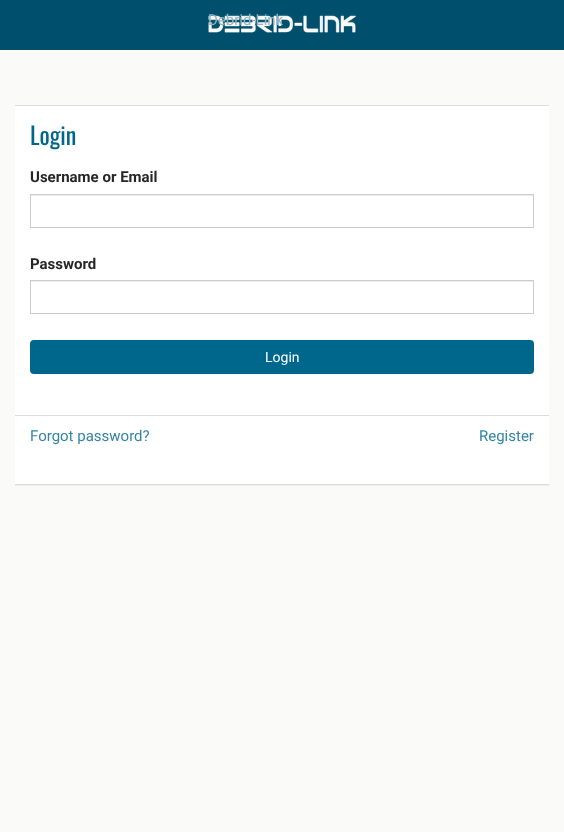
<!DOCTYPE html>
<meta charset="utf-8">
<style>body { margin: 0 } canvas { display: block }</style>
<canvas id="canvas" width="564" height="832"></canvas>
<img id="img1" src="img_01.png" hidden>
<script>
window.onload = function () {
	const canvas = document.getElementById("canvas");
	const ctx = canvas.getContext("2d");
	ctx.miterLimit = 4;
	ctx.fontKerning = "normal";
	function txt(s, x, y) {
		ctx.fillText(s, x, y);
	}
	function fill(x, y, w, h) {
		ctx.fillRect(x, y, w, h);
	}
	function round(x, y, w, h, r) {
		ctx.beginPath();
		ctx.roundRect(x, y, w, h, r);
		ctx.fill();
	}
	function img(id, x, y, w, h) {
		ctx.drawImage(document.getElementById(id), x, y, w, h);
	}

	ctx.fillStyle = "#FAFAF9";
	fill(0, 0, 564, 832);
	ctx.fillStyle = "#00506D";
	fill(0, 0, 564, 50);
	img("img1", 208, 14, 148, 19);
	ctx.fillStyle = "rgba(0, 0, 0, 0.05)";
	ctx.filter = "blur(0.5px)";
	ctx.beginPath();
	ctx.rect(15, 106, 534, 380);
	ctx.fill();
	ctx.filter = "none";
	ctx.fillStyle = "#FFFFFF";
	fill(15, 106, 534, 378);
	ctx.fillStyle = "#DDDDDD";
	fill(15, 105, 534, 1);
	fill(15, 484, 534, 1);
	ctx.fillStyle = "#ECECEC";
	fill(31, 195, 502, 1);
	ctx.strokeStyle = "#CCCCCC";
	ctx.strokeRect(30.5, 194.5, 503, 33);
	fill(31, 281, 502, 1);
	ctx.strokeRect(30.5, 280.5, 503, 33);
	ctx.fillStyle = "#00678C";
	round(30, 340, 504, 34, 4);
	ctx.fillStyle = "#DDDDDD";
	fill(15, 415, 534, 1);
	ctx.font = "15px Roboto";
	ctx.fillStyle = "#93B4C0";
	txt("Debrid-Link", 208, 25);
	ctx.font = "24px Oswald";
	ctx.fillStyle = "#00678C";
	txt("Login", 30, 145);
	ctx.font = "bold 15px Roboto";
	ctx.fillStyle = "#262626";
	txt("Username or Email", 30, 182);
	txt("Password", 30, 269);
	ctx.font = "14px Roboto";
	ctx.fillStyle = "#FFFFFF";
	txt("Login", 265, 362);
	ctx.font = "15px Roboto";
	ctx.fillStyle = "#3385A3";
	txt("Forgot password?", 30, 441);
	txt("Register", 479, 441);
};
</script>
